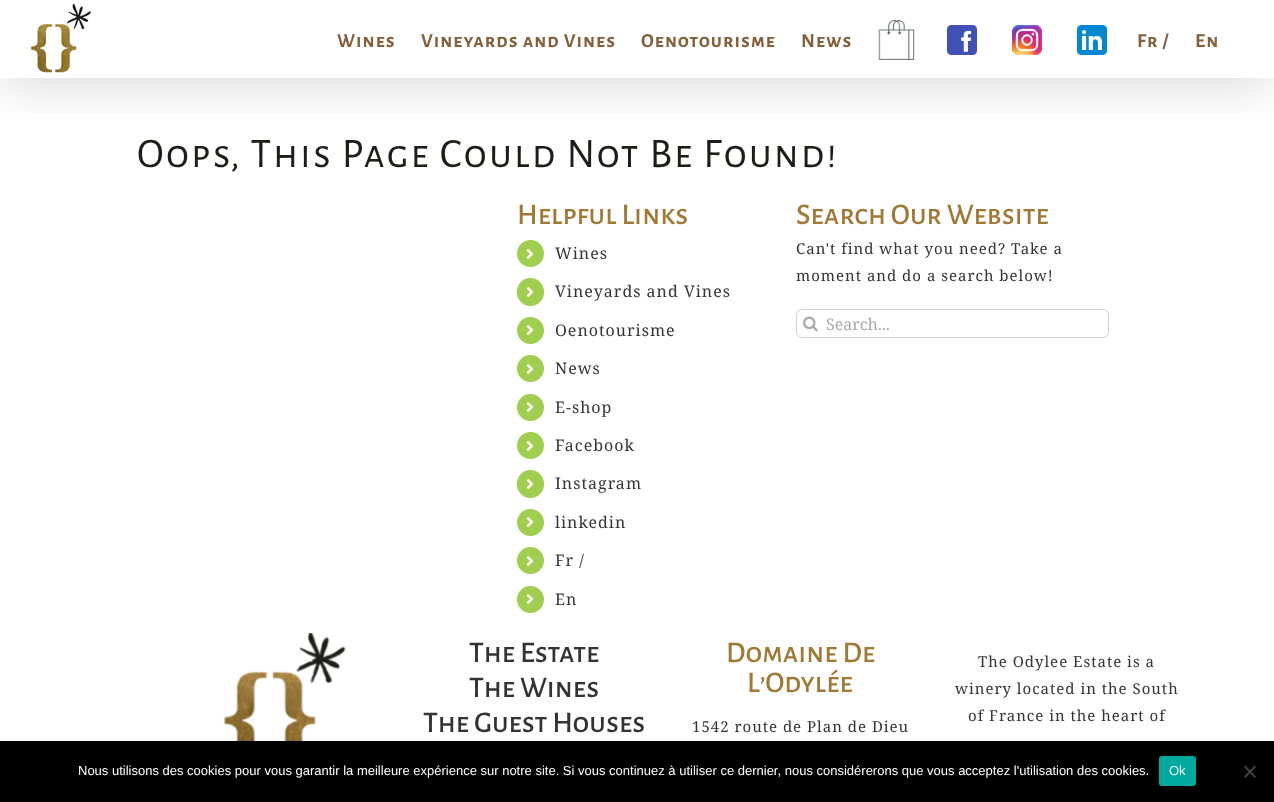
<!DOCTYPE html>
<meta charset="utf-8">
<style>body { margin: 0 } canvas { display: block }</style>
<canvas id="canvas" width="1274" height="802"></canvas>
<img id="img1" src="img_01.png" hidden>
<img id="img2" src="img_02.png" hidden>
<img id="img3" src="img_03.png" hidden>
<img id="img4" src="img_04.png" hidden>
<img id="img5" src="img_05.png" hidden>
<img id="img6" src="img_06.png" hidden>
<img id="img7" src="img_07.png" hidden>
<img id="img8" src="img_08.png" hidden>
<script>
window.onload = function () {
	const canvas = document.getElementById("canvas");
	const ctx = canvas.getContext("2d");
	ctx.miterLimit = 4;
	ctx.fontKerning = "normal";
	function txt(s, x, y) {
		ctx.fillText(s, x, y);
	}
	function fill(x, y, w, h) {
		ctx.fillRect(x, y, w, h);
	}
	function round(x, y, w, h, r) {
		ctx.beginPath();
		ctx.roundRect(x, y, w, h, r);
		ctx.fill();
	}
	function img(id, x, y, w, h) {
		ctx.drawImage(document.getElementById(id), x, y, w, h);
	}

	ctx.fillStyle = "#FFFFFF";
	fill(0, 0, 1274, 802);
	ctx.save();
	ctx.beginPath();
	ctx.rect(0, 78, 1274, 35);
	ctx.clip();
	ctx.fillStyle = "rgba(0, 0, 0, 0.14)";
	ctx.filter = "blur(25px)";
	ctx.beginPath();
	ctx.rect(2, 12, 1270, 74);
	ctx.fill();
	ctx.filter = "none";
	ctx.restore();
	img("img1", 30, 4, 61, 70);
	img("img2", 878, 20, 37, 40);
	img("img3", 947, 25, 30, 30);
	img("img4", 1012, 25, 30, 30);
	img("img5", 1077, 25, 30, 30);
	ctx.fillStyle = "#A0CE4E";
	ctx.beginPath();
	ctx.arc(530.5, 253.5, 13.5, 0, Math.PI * 2);
	ctx.fill();
	img("img6", 526, 249, 8, 10);
	round(517, 278, 27, 28, 13.5);
	img("img6", 526, 287, 8, 10);
	ctx.beginPath();
	ctx.arc(530.5, 330.5, 13.5, 0, Math.PI * 2);
	ctx.fill();
	img("img6", 526, 325, 8, 10);
	ctx.beginPath();
	ctx.arc(530.5, 368.5, 13.5, 0, Math.PI * 2);
	ctx.fill();
	img("img6", 526, 364, 8, 10);
	ctx.beginPath();
	ctx.arc(530.5, 407.5, 13.5, 0, Math.PI * 2);
	ctx.fill();
	img("img6", 526, 402, 8, 10);
	ctx.beginPath();
	ctx.arc(530.5, 445.5, 13.5, 0, Math.PI * 2);
	ctx.fill();
	img("img6", 526, 441, 8, 10);
	round(517, 470, 27, 28, 13.5);
	img("img6", 526, 479, 8, 10);
	ctx.beginPath();
	ctx.arc(530.5, 522.5, 13.5, 0, Math.PI * 2);
	ctx.fill();
	img("img6", 526, 517, 8, 10);
	ctx.beginPath();
	ctx.arc(530.5, 560.5, 13.5, 0, Math.PI * 2);
	ctx.fill();
	img("img6", 526, 556, 8, 10);
	ctx.beginPath();
	ctx.arc(530.5, 599.5, 13.5, 0, Math.PI * 2);
	ctx.fill();
	img("img6", 526, 594, 8, 10);
	ctx.beginPath();
	ctx.roundRect(796.5, 309.5, 312, 28, 5.5);
	ctx.strokeStyle = "#D2D2D2";
	ctx.stroke();
	img("img7", 803, 316, 15, 16);
	img("img8", 223, 633, 123, 108);
	ctx.fillStyle = "#000000";
	fill(0, 741, 1274, 61);
	ctx.fillStyle = "#00A99D";
	round(1159, 756, 37, 30, 3);
	ctx.fillStyle = "#404040";
	ctx.beginPath();
	ctx.moveTo(1254.5, 765.5);
	ctx.lineTo(1256, 767);
	ctx.lineTo(1245.5, 778);
	ctx.lineTo(1244, 776.5);
	ctx.closePath();
	ctx.fill();
	ctx.beginPath();
	ctx.moveTo(1244, 767);
	ctx.lineTo(1245.5, 765.5);
	ctx.lineTo(1256, 776.5);
	ctx.lineTo(1254.5, 778);
	ctx.closePath();
	ctx.fill();
	ctx.letterSpacing = "1px";
	ctx.font = "bold 20px Alegreya Sans SC";
	ctx.fillStyle = "#845F39";
	txt("Wines", 337, 47);
	txt("Vineyards and Vines", 421, 47);
	txt("Oenotourisme", 641, 47);
	txt("News", 801, 47);
	txt("Fr /", 1137, 47);
	txt("En", 1195, 47);
	ctx.letterSpacing = "2px";
	ctx.font = "42px Alegreya Sans SC";
	ctx.fillStyle = "#1D1D1B";
	txt("Oops, This Page Could Not Be Found!", 137, 167);
	ctx.letterSpacing = "0px";
	ctx.font = "500 30px Alegreya Sans SC";
	ctx.fillStyle = "#A07935";
	txt("Helpful Links", 517, 224);
	ctx.letterSpacing = "1px";
	ctx.font = "16px Noto Serif";
	ctx.fillStyle = "#333333";
	txt("Wines", 555, 259);
	txt("Vineyards and Vines", 555, 297);
	txt("Oenotourisme", 555, 336);
	txt("News", 555, 374);
	txt("E-shop", 555, 413);
	txt("Facebook", 555, 451);
	txt("Instagram", 555, 489);
	txt("linkedin", 555, 528);
	txt("Fr /", 555, 566);
	txt("En", 555, 605);
	ctx.letterSpacing = "0px";
	ctx.font = "500 30px Alegreya Sans SC";
	ctx.fillStyle = "#A07935";
	txt("Search Our Website", 796, 224);
	ctx.letterSpacing = "1px";
	ctx.font = "15px Noto Serif";
	ctx.fillStyle = "#333333";
	txt("Can't find what you need? Take a", 796, 254);
	txt("moment and do a search below!", 796, 281);
	ctx.letterSpacing = "0px";
	ctx.font = "16px Noto Serif";
	ctx.fillStyle = "#AAA9A9";
	txt("Search...", 826, 330);
	ctx.font = "500 30px Alegreya Sans SC";
	ctx.fillStyle = "#333333";
	txt("The Estate", 469, 662);
	txt("The Wines", 469, 697);
	txt("The Guest Houses", 423, 732);
	ctx.fillStyle = "#A07935";
	txt("Domaine De", 726, 662);
	txt("L’Odylée", 747, 692);
	ctx.letterSpacing = "1px";
	ctx.font = "15px Noto Serif";
	ctx.fillStyle = "#333333";
	txt("1542 route de Plan de Dieu", 692, 732);
	txt("The Odylee Estate is a", 978, 667);
	txt("winery located in the South", 955, 694);
	txt("of France in the heart of", 968, 721);
	ctx.letterSpacing = "0px";
	ctx.font = "13px Liberation Sans";
	ctx.fillStyle = "#FFFFFF";
	txt("Nous utilisons des cookies pour vous garantir la meilleure expérience sur notre site. Si vous continuez à utiliser ce dernier, nous considérerons que vous acceptez l'utilisation des cookies.", 78, 775);
	txt("Ok", 1169, 775);
};
</script>
